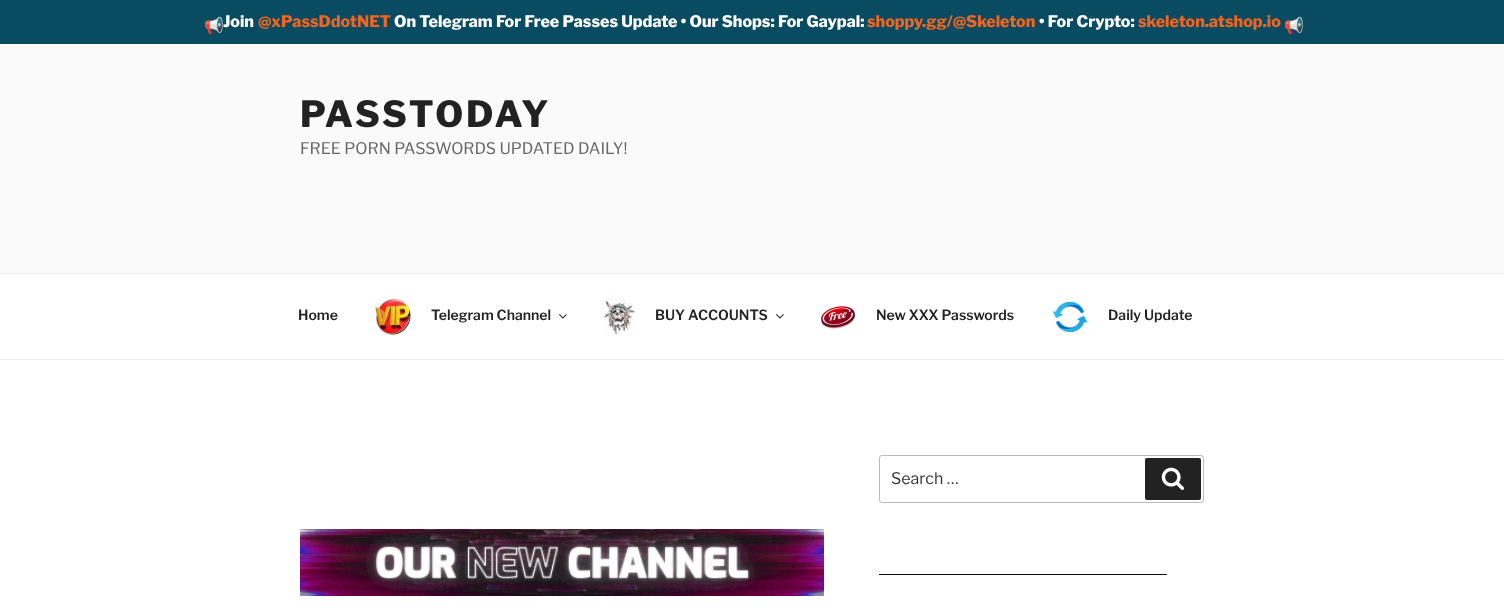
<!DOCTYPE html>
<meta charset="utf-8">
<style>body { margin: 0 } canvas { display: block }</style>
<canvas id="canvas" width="1504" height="610"></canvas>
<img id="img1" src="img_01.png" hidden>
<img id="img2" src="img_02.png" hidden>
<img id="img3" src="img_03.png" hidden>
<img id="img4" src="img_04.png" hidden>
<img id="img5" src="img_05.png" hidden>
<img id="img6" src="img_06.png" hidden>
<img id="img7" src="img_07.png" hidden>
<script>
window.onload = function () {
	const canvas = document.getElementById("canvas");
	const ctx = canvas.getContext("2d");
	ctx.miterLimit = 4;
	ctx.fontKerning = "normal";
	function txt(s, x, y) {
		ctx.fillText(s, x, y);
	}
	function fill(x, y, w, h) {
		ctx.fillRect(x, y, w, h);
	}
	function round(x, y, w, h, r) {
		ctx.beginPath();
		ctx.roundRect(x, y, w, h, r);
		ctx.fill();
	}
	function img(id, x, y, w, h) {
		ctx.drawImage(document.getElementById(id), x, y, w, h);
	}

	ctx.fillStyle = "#FFFFFF";
	fill(0, 0, 1504, 610);
	ctx.fillStyle = "#094C62";
	fill(0, 0, 1504, 44);
	ctx.fillStyle = "#FAFAFA";
	fill(0, 44, 1504, 229);
	ctx.fillStyle = "#EEEEEE";
	fill(0, 273, 1504, 1);
	fill(0, 359, 1504, 1);
	img("img1", 375, 299, 36, 36);
	img("img2", 559, 314, 8, 5);
	img("img3", 603, 299, 32, 36);
	img("img2", 776, 314, 8, 5);
	img("img4", 821, 306, 35, 23);
	img("img5", 1052, 302, 36, 30);
	ctx.beginPath();
	ctx.roundRect(879.5, 455.5, 324, 47, 2.5);
	ctx.strokeStyle = "#BBBBBB";
	ctx.stroke();
	ctx.fillStyle = "#222222";
	round(1145, 458, 56, 42, 2);
	img("img6", 1161, 467, 23, 23);
	ctx.fillStyle = "#0F0F0F";
	fill(879, 574, 288, 1);
	img("img7", 300, 529, 524, 67);
	ctx.font = "100 16px 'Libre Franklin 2'";
	ctx.fillStyle = "#FFFFFF";
	txt("Join", 223, 27);
	ctx.font = "bold 16px Noto Color Emoji";
	txt("📢", 204, 31);
	ctx.font = "100 16px 'Libre Franklin 2'";
	ctx.fillStyle = "#F16521";
	txt("@xPassDdotNET", 258, 27);
	ctx.fillStyle = "#FFFFFF";
	txt("On Telegram For Free Passes Update • Our Shops: For Gaypal:", 394, 27);
	ctx.fillStyle = "#F16521";
	txt("shoppy.gg/@Skeleton", 867, 27);
	ctx.fillStyle = "#FFFFFF";
	txt("• For Crypto:", 1039, 27);
	ctx.fillStyle = "#F16521";
	txt("skeleton.atshop.io", 1138, 27);
	ctx.font = "bold 16px Noto Color Emoji";
	ctx.fillStyle = "#FFFFFF";
	txt("📢", 1284, 31);
	ctx.letterSpacing = "2.9px";
	ctx.font = "100 36px 'Libre Franklin 2'";
	ctx.fillStyle = "#222222";
	txt("PASSTODAY", 300, 127);
	ctx.letterSpacing = "0px";
	ctx.font = "100 16px Libre Franklin";
	ctx.fillStyle = "#666666";
	txt("FREE PORN PASSWORDS UPDATED DAILY!", 300, 154);
	ctx.font = "100 14px 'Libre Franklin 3'";
	ctx.fillStyle = "#222222";
	txt("Home", 298, 320);
	txt("Telegram Channel", 431, 320);
	txt("BUY ACCOUNTS", 655, 320);
	txt("New XXX Passwords", 876, 320);
	txt("Daily Update", 1108, 320);
	ctx.font = "100 16px Libre Franklin";
	ctx.fillStyle = "#333333";
	txt("Search …", 891, 484);
};
</script>
